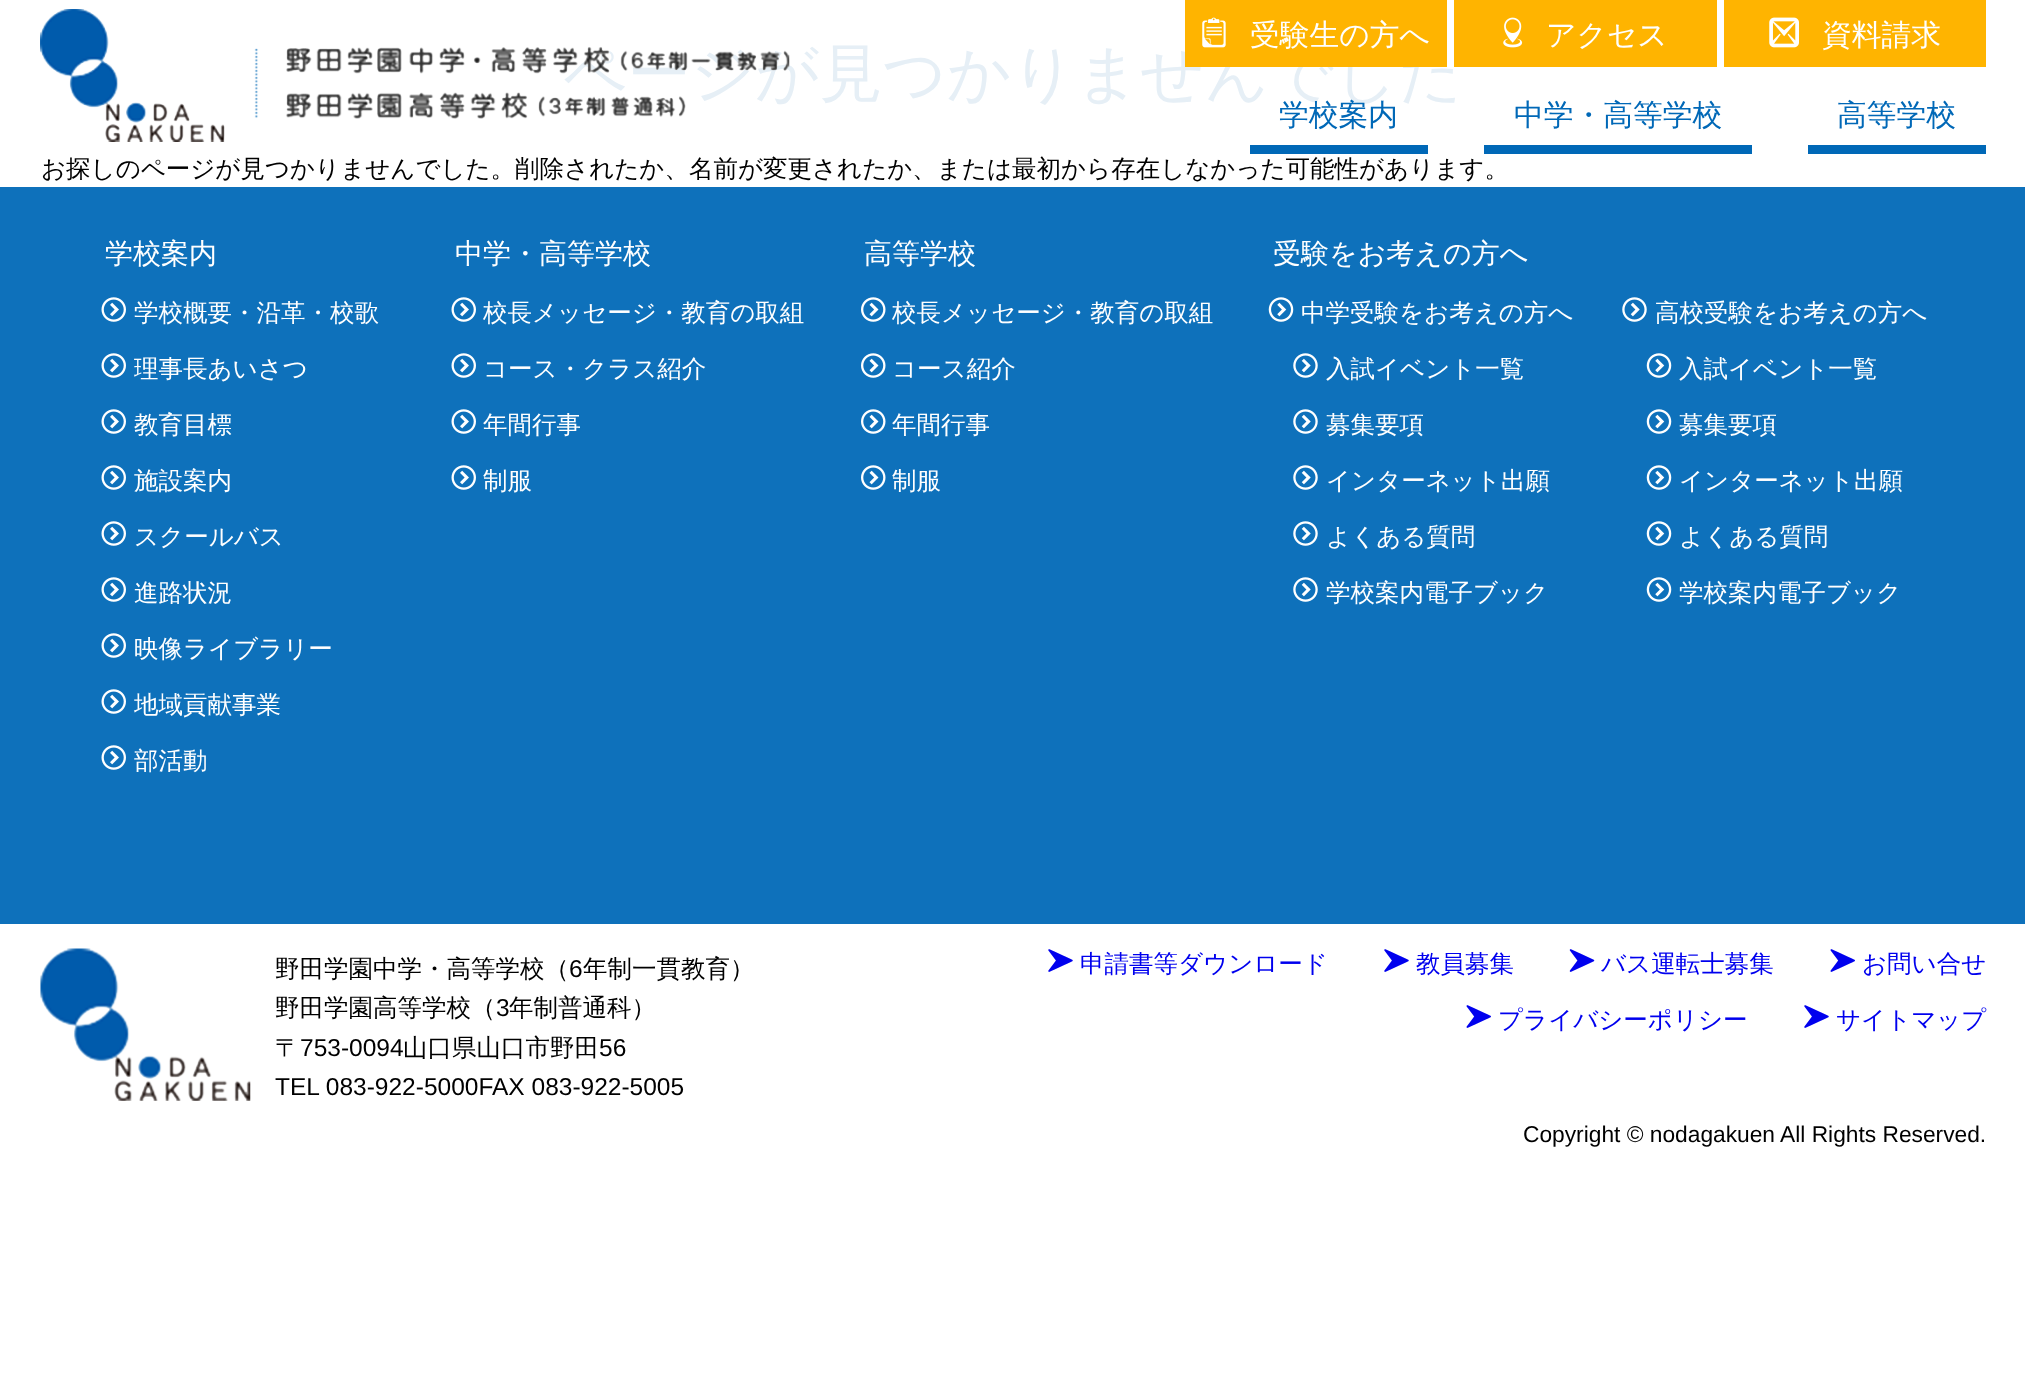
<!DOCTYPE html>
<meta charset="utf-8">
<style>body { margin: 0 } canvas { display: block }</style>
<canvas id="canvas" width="2025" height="1379"></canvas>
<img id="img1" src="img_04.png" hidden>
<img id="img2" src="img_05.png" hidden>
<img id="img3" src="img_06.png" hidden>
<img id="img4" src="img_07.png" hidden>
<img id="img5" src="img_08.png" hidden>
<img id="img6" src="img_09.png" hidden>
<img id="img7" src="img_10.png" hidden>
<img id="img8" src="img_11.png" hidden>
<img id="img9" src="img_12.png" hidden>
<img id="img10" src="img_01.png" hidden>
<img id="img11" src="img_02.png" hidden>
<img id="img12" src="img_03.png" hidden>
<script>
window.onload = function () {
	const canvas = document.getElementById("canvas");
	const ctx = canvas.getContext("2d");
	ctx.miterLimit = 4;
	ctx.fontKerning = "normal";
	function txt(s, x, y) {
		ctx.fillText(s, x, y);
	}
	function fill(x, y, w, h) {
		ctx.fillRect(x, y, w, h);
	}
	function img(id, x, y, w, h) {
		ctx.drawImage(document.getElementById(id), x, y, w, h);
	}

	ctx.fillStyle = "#FFFFFF";
	fill(0, 0, 2025, 1379);
	ctx.fillStyle = "#FFB400";
	fill(1724, 0, 262, 67);
	img("img1", 1769, 17, 30, 31);
	ctx.fillStyle = "#0068B7";
	fill(1250, 145, 178, 9);
	fill(1484, 145, 268, 9);
	fill(1808, 145, 178, 9);
	ctx.fillStyle = "#0E71BB";
	fill(0, 187, 2025, 737);
	img("img2", 101, 297, 25, 25);
	img("img2", 101, 353, 25, 25);
	img("img2", 101, 409, 25, 25);
	img("img2", 101, 465, 25, 25);
	img("img2", 101, 521, 25, 25);
	img("img2", 101, 577, 25, 25);
	img("img2", 101, 633, 25, 25);
	img("img2", 101, 689, 25, 25);
	img("img2", 101, 745, 25, 25);
	img("img2", 451, 297, 25, 25);
	img("img2", 451, 353, 25, 25);
	img("img2", 451, 409, 25, 25);
	img("img2", 451, 465, 25, 25);
	img("img3", 861, 297, 25, 25);
	img("img3", 861, 353, 25, 25);
	img("img3", 861, 409, 25, 25);
	img("img3", 861, 465, 25, 25);
	img("img4", 1268, 297, 26, 25);
	img("img5", 1293, 353, 25, 25);
	img("img5", 1293, 409, 25, 25);
	img("img5", 1293, 465, 25, 25);
	img("img5", 1293, 521, 25, 25);
	img("img5", 1293, 577, 25, 25);
	img("img5", 1622, 297, 25, 25);
	img("img4", 1646, 353, 26, 25);
	img("img4", 1646, 409, 26, 25);
	img("img4", 1646, 465, 26, 25);
	img("img4", 1646, 521, 26, 25);
	img("img4", 1646, 577, 26, 25);
	img("img6", 40, 948, 211, 153);
	img("img7", 1048, 949, 25, 23);
	img("img7", 1384, 949, 25, 23);
	img("img8", 1569, 949, 26, 23);
	img("img9", 1830, 949, 25, 23);
	img("img9", 1466, 1005, 25, 23);
	img("img7", 1804, 1005, 25, 23);
	ctx.font = "500 63px WenQuanYi Zen Hei";
	ctx.fillStyle = "#E6EFF6";
	txt("ページが見つかりませんでした", 563, 95);
	ctx.font = "500 24.5px WenQuanYi Zen Hei";
	ctx.fillStyle = "#000000";
	txt("お探しのページが見つかりませんでした。削除されたか、名前が変更されたか、または最初から存在しなかった可能性があります。", 41, 177);
	img("img10", 40, 9, 750, 133);
	ctx.fillStyle = "#FFB400";
	fill(1185, 0, 262, 67);
	img("img11", 1202, 17, 24, 31);
	ctx.font = "500 29.75px WenQuanYi Zen Hei";
	ctx.fillStyle = "#FFFFFF";
	txt("受験生の方へ", 1250, 45);
	ctx.fillStyle = "#FFB400";
	fill(1454, 0, 263, 67);
	img("img12", 1503, 17, 20, 31);
	ctx.fillStyle = "#FFFFFF";
	txt("アクセス", 1546, 45);
	txt("資料請求", 1822, 45);
	ctx.fillStyle = "#0068B7";
	txt("学校案内", 1279, 125);
	txt("中学・高等学校", 1514, 125);
	txt("高等学校", 1837, 125);
	ctx.font = "500 28px WenQuanYi Zen Hei";
	ctx.fillStyle = "#FFFFFF";
	txt("学校案内", 105, 263);
	ctx.font = "500 24.5px WenQuanYi Zen Hei";
	txt("学校概要・沿革・校歌", 134, 321);
	txt("理事長あいさつ", 134, 377);
	txt("教育目標", 134, 433);
	txt("施設案内", 134, 489);
	txt("スクールバス", 134, 545);
	txt("進路状況", 134, 601);
	txt("映像ライブラリー", 134, 657);
	txt("地域貢献事業", 134, 713);
	txt("部活動", 134, 769);
	ctx.font = "500 28px WenQuanYi Zen Hei";
	txt("中学・高等学校", 455, 263);
	ctx.font = "500 24.5px WenQuanYi Zen Hei";
	txt("校長メッセージ・教育の取組", 483, 321);
	txt("コース・クラス紹介", 483, 377);
	txt("年間行事", 483, 433);
	txt("制服", 483, 489);
	ctx.font = "500 28px WenQuanYi Zen Hei";
	txt("高等学校", 864, 263);
	ctx.font = "500 24.5px WenQuanYi Zen Hei";
	txt("校長メッセージ・教育の取組", 892, 321);
	txt("コース紹介", 892, 377);
	txt("年間行事", 892, 433);
	txt("制服", 892, 489);
	ctx.font = "500 28px WenQuanYi Zen Hei";
	txt("受験をお考えの方へ", 1273, 263);
	ctx.font = "500 24.5px WenQuanYi Zen Hei";
	txt("中学受験をお考えの方へ", 1301, 321);
	txt("入試イベント一覧", 1326, 377);
	txt("募集要項", 1326, 433);
	txt("インターネット出願", 1326, 489);
	txt("よくある質問", 1326, 545);
	txt("学校案内電子ブック", 1326, 601);
	txt("高校受験をお考えの方へ", 1655, 321);
	txt("入試イベント一覧", 1679, 377);
	txt("募集要項", 1679, 433);
	txt("インターネット出願", 1679, 489);
	txt("よくある質問", 1679, 545);
	txt("学校案内電子ブック", 1679, 601);
	ctx.fillStyle = "#000000";
	txt("野田学園中学・高等学校（", 275, 977);
	ctx.font = "24.5px Liberation Sans";
	txt("6", 569, 977);
	ctx.font = "500 24.5px WenQuanYi Zen Hei";
	txt("年制一貫教育）", 583, 977);
	txt("野田学園高等学校（", 275, 1016);
	ctx.font = "24.5px Liberation Sans";
	txt("3", 496, 1016);
	ctx.font = "500 24.5px WenQuanYi Zen Hei";
	txt("年制普通科）", 509, 1016);
	txt("〒", 275, 1056);
	ctx.font = "24.5px Liberation Sans";
	txt("753-0094", 300, 1056);
	ctx.font = "500 24.5px WenQuanYi Zen Hei";
	txt("山口県山口市野田", 403, 1056);
	ctx.font = "24.5px Liberation Sans";
	txt("56", 599, 1056);
	txt("TEL 083-922-5000FAX 083-922-5005", 275, 1095);
	ctx.font = "500 24.5px WenQuanYi Zen Hei";
	ctx.fillStyle = "#0000EE";
	txt("申請書等ダウンロード", 1080, 972);
	txt("教員募集", 1416, 972);
	txt("バス運転士募集", 1601, 972);
	txt("お問い合せ", 1862, 972);
	txt("プライバシーポリシー", 1498, 1028);
	txt("サイトマップ", 1836, 1028);
	ctx.font = "22.75px Liberation Sans";
	ctx.fillStyle = "#000000";
	txt("Copyright © nodagakuen All Rights Reserved.", 1523, 1142);
};
</script>
